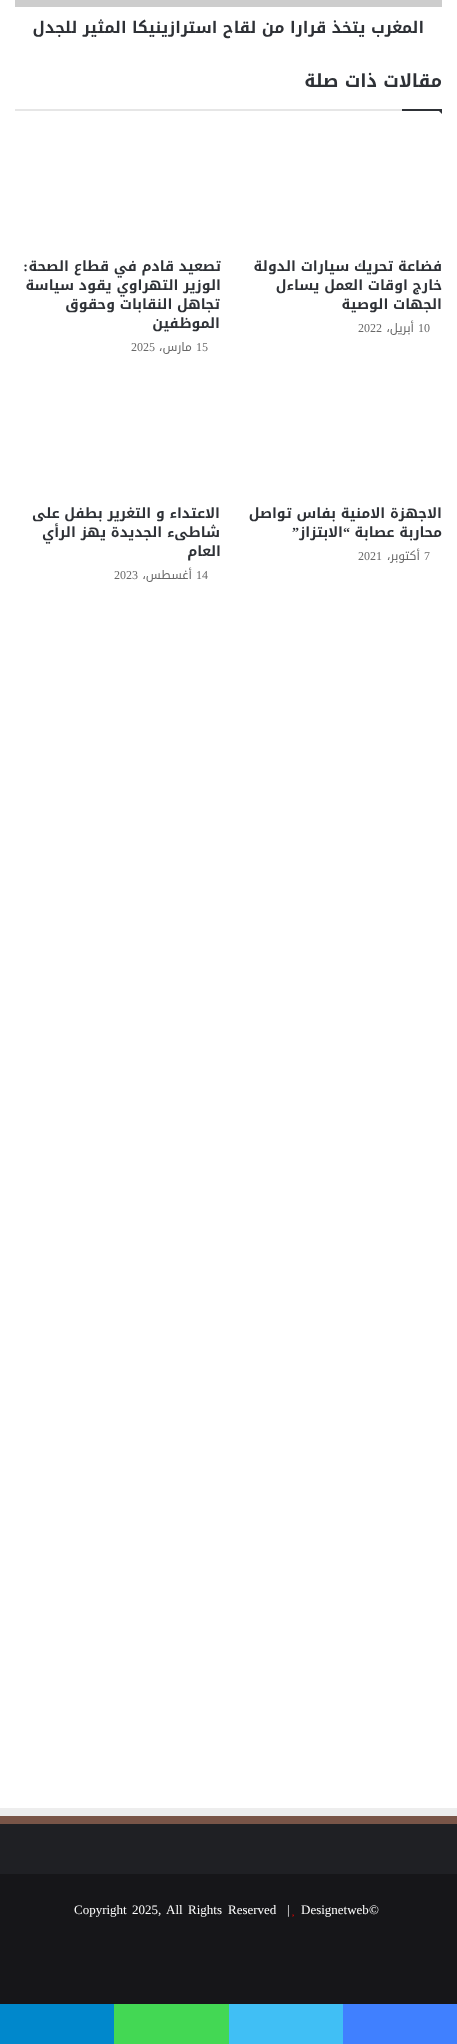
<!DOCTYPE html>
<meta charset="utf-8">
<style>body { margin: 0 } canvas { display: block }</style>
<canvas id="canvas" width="457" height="2044"></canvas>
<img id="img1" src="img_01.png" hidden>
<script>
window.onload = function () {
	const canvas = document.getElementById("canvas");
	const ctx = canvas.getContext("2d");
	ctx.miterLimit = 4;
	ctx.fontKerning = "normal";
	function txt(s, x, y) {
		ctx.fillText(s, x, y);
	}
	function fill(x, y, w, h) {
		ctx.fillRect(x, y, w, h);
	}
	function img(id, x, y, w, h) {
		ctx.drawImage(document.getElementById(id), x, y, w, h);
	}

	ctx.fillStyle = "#FFFFFF";
	fill(0, 0, 457, 2044);
	ctx.fillStyle = "#CDCDCD";
	fill(15, 0, 427, 7);
	ctx.fillStyle = "#E6E6E6";
	fill(15, 109, 387, 2);
	ctx.fillStyle = "#2E3136";
	ctx.beginPath();
	ctx.moveTo(437, 109);
	ctx.lineTo(442, 109);
	ctx.lineTo(442, 114);
	ctx.closePath();
	ctx.fill();
	fill(402, 109, 40, 2);
	ctx.fillStyle = "#1F2024";
	fill(0, 1824, 457, 50);
	ctx.fillStyle = "#EDEDED";
	fill(0, 1808, 457, 8);
	ctx.fillStyle = "#795548";
	fill(0, 1816, 457, 8);
	ctx.fillStyle = "#161619";
	fill(0, 1874, 457, 130);
	img("img1", 292, 1914, 2, 3);
	ctx.fillStyle = "#4080FF";
	fill(343, 2004, 114, 40);
	ctx.fillStyle = "#40BFF5";
	fill(229, 2004, 114, 40);
	ctx.fillStyle = "#43D854";
	fill(114, 2004, 115, 40);
	ctx.fillStyle = "#0088CC";
	fill(0, 2004, 114, 40);
	ctx.direction = "rtl";
	ctx.font = "bold 16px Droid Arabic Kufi";
	ctx.fillStyle = "#2E3136";
	txt("المغرب يتخذ قرارا من لقاح استرازينيكا المثير للجدل", 424, 33);
	ctx.font = "bold 18px Droid Arabic Kufi";
	txt("مقالات ذات صلة", 442, 87);
	ctx.font = "bold 14px Droid Arabic Kufi";
	txt("فضاعة تحريك سيارات الدولة", 442, 271);
	txt("خارج اوقات العمل يساءل", 442, 290);
	txt("الجهات الوصية", 442, 309);
	ctx.direction = "ltr";
	ctx.font = "12px Liberation Serif";
	ctx.fillStyle = "#686868";
	txt("10", 418, 332);
	ctx.direction = "rtl";
	ctx.font = "12px Droid Arabic Kufi";
	txt("أبريل،", 414, 332);
	ctx.direction = "ltr";
	ctx.font = "12px Liberation Serif";
	txt("2022", 358, 332);
	ctx.direction = "rtl";
	ctx.font = "bold 14px Droid Arabic Kufi";
	ctx.fillStyle = "#2E3136";
	txt("تصعيد قادم في قطاع الصحة", 221, 271);
	ctx.font = "bold 14px Liberation Serif";
	txt(":", 28, 271);
	ctx.font = "bold 14px Droid Arabic Kufi";
	txt("الوزير التهراوي يقود سياسة", 221, 290);
	txt("تجاهل النقابات وحقوق", 220, 309);
	txt("الموظفين", 220, 328);
	ctx.direction = "ltr";
	ctx.font = "12px Liberation Serif";
	ctx.fillStyle = "#686868";
	txt("15", 196, 351);
	ctx.direction = "rtl";
	ctx.font = "12px Droid Arabic Kufi";
	txt("مارس،", 192, 351);
	ctx.direction = "ltr";
	ctx.font = "12px Liberation Serif";
	txt("2025", 131, 351);
	ctx.direction = "rtl";
	ctx.font = "bold 14px Droid Arabic Kufi";
	ctx.fillStyle = "#2E3136";
	txt("الاجهزة الامنية بفاس تواصل", 442, 518);
	txt("محاربة عصابة", 442, 537);
	ctx.font = "bold 14px Liberation Serif";
	txt("“", 350, 537);
	txt("”", 299, 537);
	ctx.font = "bold 14px Droid Arabic Kufi";
	txt("الابتزاز", 343, 537);
	ctx.direction = "ltr";
	ctx.font = "12px Liberation Serif";
	ctx.fillStyle = "#686868";
	txt("7", 424, 560);
	ctx.direction = "rtl";
	ctx.font = "12px Droid Arabic Kufi";
	txt("أكتوبر،", 420, 560);
	ctx.direction = "ltr";
	ctx.font = "12px Liberation Serif";
	txt("2021", 358, 560);
	ctx.direction = "rtl";
	ctx.font = "bold 14px Droid Arabic Kufi";
	ctx.fillStyle = "#2E3136";
	txt("الاعتداء و التغرير بطفل على", 220, 518);
	txt("شاطىء الجديدة يهز الرأي", 220, 537);
	txt("العام", 221, 556);
	ctx.direction = "ltr";
	ctx.font = "12px Liberation Serif";
	ctx.fillStyle = "#686868";
	txt("14", 196, 579);
	ctx.direction = "rtl";
	ctx.font = "12px Droid Arabic Kufi";
	txt("أغسطس،", 192, 579);
	ctx.direction = "ltr";
	ctx.font = "12px Liberation Serif";
	txt("2023", 114, 579);
	ctx.font = "13px Liberation Serif";
	ctx.fillStyle = "#FFFFFF";
	txt("©", 369, 1914);
	txt("Designetweb", 301, 1914);
	txt("|", 287, 1914);
	txt("Reserved", 228, 1914);
	txt("Rights", 188, 1914);
	txt("All", 166, 1914);
	txt("2025,", 132, 1914);
	txt("Copyright", 74, 1914);
};
</script>
